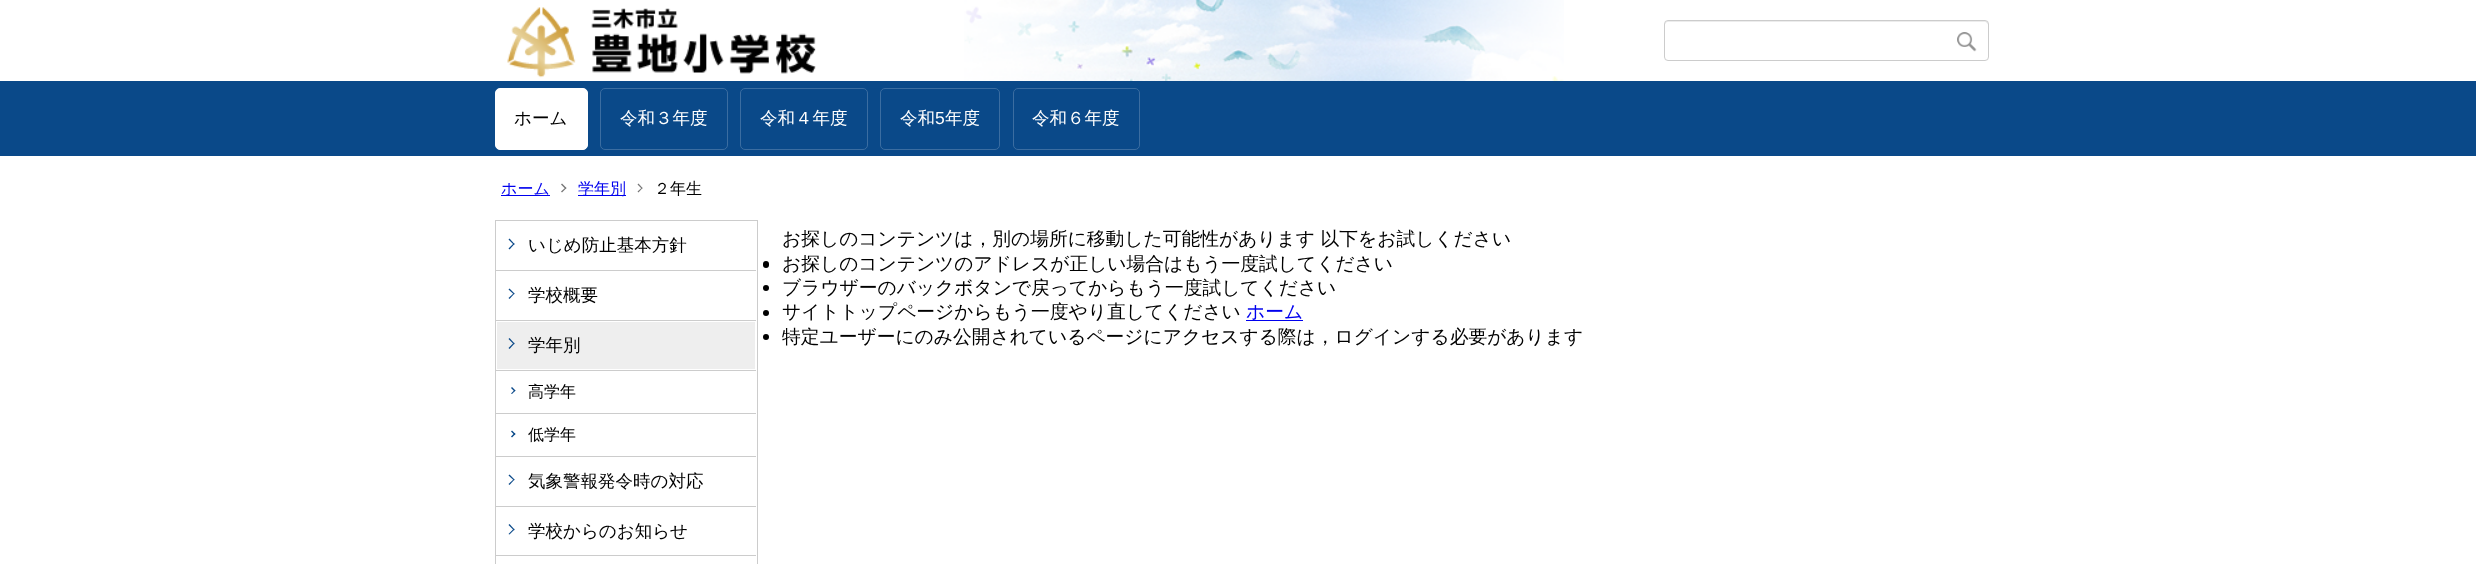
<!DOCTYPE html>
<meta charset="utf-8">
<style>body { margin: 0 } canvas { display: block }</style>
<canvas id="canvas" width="2476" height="564"></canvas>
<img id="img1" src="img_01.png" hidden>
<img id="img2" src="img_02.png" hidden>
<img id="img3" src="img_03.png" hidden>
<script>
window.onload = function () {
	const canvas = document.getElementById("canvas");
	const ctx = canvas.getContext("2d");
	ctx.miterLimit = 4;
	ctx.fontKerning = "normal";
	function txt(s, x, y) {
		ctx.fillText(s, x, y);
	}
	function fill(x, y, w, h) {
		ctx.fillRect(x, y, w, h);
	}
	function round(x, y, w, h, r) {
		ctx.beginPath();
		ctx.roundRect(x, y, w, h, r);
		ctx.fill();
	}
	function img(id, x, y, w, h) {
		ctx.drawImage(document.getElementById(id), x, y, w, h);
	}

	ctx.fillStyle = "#FFFFFF";
	fill(0, 0, 2476, 564);
	img("img1", 964, 0, 600, 81);
	img("img2", 507, 7, 309, 71);
	ctx.fillStyle = "#ECECEC";
	ctx.beginPath();
	ctx.moveTo(1668, 22);
	ctx.lineTo(1985, 22);
	ctx.bezierCurveTo(1986, 22, 1988, 24, 1988, 25);
	ctx.lineTo(1988, 24);
	ctx.bezierCurveTo(1988, 22, 1987, 21, 1986, 21);
	ctx.lineTo(1668, 21);
	ctx.bezierCurveTo(1666, 21, 1665, 22, 1665, 24);
	ctx.lineTo(1665, 25);
	ctx.bezierCurveTo(1665, 24, 1666, 22, 1668, 22);
	ctx.closePath();
	ctx.fill();
	ctx.beginPath();
	ctx.roundRect(1664.5, 20.5, 324, 40, 3.5);
	ctx.strokeStyle = "#CCCCCC";
	ctx.stroke();
	img("img3", 1957, 32, 20, 20);
	ctx.fillStyle = "#0A4989";
	fill(0, 81, 2476, 75);
	ctx.fillStyle = "#FFFFFF";
	ctx.beginPath();
	ctx.roundRect(495.5, 88.5, 92, 61, 4.5);
	ctx.fill();
	ctx.strokeStyle = "#FFFFFF";
	ctx.stroke();
	ctx.beginPath();
	ctx.roundRect(600.5, 88.5, 127, 61, 4.5);
	ctx.strokeStyle = "#3B6DA1";
	ctx.stroke();
	ctx.beginPath();
	ctx.roundRect(740.5, 88.5, 127, 61, 4.5);
	ctx.stroke();
	ctx.beginPath();
	ctx.roundRect(880.5, 88.5, 119, 61, 4.5);
	ctx.stroke();
	ctx.beginPath();
	ctx.roundRect(1013.5, 88.5, 126, 61, 4.5);
	ctx.stroke();
	ctx.fillStyle = "#0000EE";
	fill(501, 195, 49, 1);
	ctx.fillStyle = "#777777";
	ctx.beginPath();
	ctx.moveTo(562, 183.5);
	ctx.lineTo(566.5, 188);
	ctx.lineTo(565.5, 189);
	ctx.lineTo(561, 184.5);
	ctx.closePath();
	ctx.fill();
	ctx.beginPath();
	ctx.moveTo(565.5, 187.5);
	ctx.lineTo(566.5, 188);
	ctx.lineTo(562, 192.5);
	ctx.lineTo(561, 191.5);
	ctx.closePath();
	ctx.fill();
	ctx.fillStyle = "#0000EE";
	fill(578, 195, 48, 1);
	ctx.fillStyle = "#777777";
	ctx.beginPath();
	ctx.moveTo(638.5, 183.5);
	ctx.lineTo(642.5, 188);
	ctx.lineTo(642, 189);
	ctx.lineTo(637.5, 184.5);
	ctx.closePath();
	ctx.fill();
	ctx.beginPath();
	ctx.moveTo(642, 187.5);
	ctx.lineTo(642.5, 188);
	ctx.lineTo(638.5, 192.5);
	ctx.lineTo(637.5, 191.5);
	ctx.closePath();
	ctx.fill();
	ctx.strokeStyle = "#CCCCCC";
	ctx.strokeRect(495.5, 220.5, 262, 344);
	ctx.fillStyle = "#0A4989";
	ctx.beginPath();
	ctx.moveTo(509.5, 238.5);
	ctx.lineTo(514.5, 244);
	ctx.lineTo(514, 245);
	ctx.lineTo(508.5, 239.5);
	ctx.closePath();
	ctx.fill();
	ctx.beginPath();
	ctx.moveTo(514, 243);
	ctx.lineTo(514.5, 244);
	ctx.lineTo(509.5, 249.5);
	ctx.lineTo(508.5, 248.5);
	ctx.closePath();
	ctx.fill();
	ctx.fillStyle = "#CCCCCC";
	fill(496, 270, 260, 1);
	ctx.fillStyle = "#0A4989";
	ctx.beginPath();
	ctx.moveTo(509.5, 288.5);
	ctx.lineTo(514.5, 293.5);
	ctx.lineTo(514, 294.5);
	ctx.lineTo(508.5, 289.5);
	ctx.closePath();
	ctx.fill();
	ctx.beginPath();
	ctx.moveTo(514, 293);
	ctx.lineTo(514.5, 293.5);
	ctx.lineTo(509.5, 299);
	ctx.lineTo(508.5, 298);
	ctx.closePath();
	ctx.fill();
	ctx.fillStyle = "#CCCCCC";
	fill(496, 320, 260, 1);
	ctx.fillStyle = "#EEEEEE";
	fill(497, 322, 258, 47);
	ctx.fillStyle = "#0A4989";
	ctx.beginPath();
	ctx.moveTo(509.5, 338);
	ctx.lineTo(514.5, 343.5);
	ctx.lineTo(514, 344.5);
	ctx.lineTo(508.5, 339);
	ctx.closePath();
	ctx.fill();
	ctx.beginPath();
	ctx.moveTo(514, 342.5);
	ctx.lineTo(514.5, 343.5);
	ctx.lineTo(509.5, 349);
	ctx.lineTo(508.5, 348);
	ctx.closePath();
	ctx.fill();
	ctx.fillStyle = "#CCCCCC";
	fill(496, 370, 260, 1);
	ctx.fillStyle = "#0A4989";
	ctx.beginPath();
	ctx.moveTo(512, 387);
	ctx.lineTo(515.5, 390.5);
	ctx.lineTo(514.5, 391.5);
	ctx.lineTo(511, 388);
	ctx.closePath();
	ctx.fill();
	ctx.beginPath();
	ctx.moveTo(514.5, 390);
	ctx.lineTo(515.5, 390.5);
	ctx.lineTo(512, 394);
	ctx.lineTo(511, 393.5);
	ctx.closePath();
	ctx.fill();
	ctx.fillStyle = "#CCCCCC";
	fill(496, 413, 260, 1);
	ctx.fillStyle = "#0A4989";
	ctx.beginPath();
	ctx.moveTo(512, 430.5);
	ctx.lineTo(515.5, 434);
	ctx.lineTo(514.5, 435);
	ctx.lineTo(511, 431.5);
	ctx.closePath();
	ctx.fill();
	ctx.beginPath();
	ctx.moveTo(514.5, 433);
	ctx.lineTo(515.5, 434);
	ctx.lineTo(512, 437.5);
	ctx.lineTo(511, 436.5);
	ctx.closePath();
	ctx.fill();
	ctx.fillStyle = "#CCCCCC";
	fill(496, 456, 260, 1);
	ctx.fillStyle = "#0A4989";
	ctx.beginPath();
	ctx.moveTo(509.5, 474.5);
	ctx.lineTo(514.5, 479.5);
	ctx.lineTo(514, 480.5);
	ctx.lineTo(508.5, 475.5);
	ctx.closePath();
	ctx.fill();
	ctx.beginPath();
	ctx.moveTo(514, 479);
	ctx.lineTo(514.5, 479.5);
	ctx.lineTo(509.5, 485);
	ctx.lineTo(508.5, 484);
	ctx.closePath();
	ctx.fill();
	ctx.fillStyle = "#CCCCCC";
	fill(496, 506, 260, 1);
	ctx.fillStyle = "#0A4989";
	ctx.beginPath();
	ctx.moveTo(509.5, 524);
	ctx.lineTo(514.5, 529.5);
	ctx.lineTo(514, 530.5);
	ctx.lineTo(508.5, 525);
	ctx.closePath();
	ctx.fill();
	ctx.beginPath();
	ctx.moveTo(514, 528.5);
	ctx.lineTo(514.5, 529.5);
	ctx.lineTo(509.5, 534.5);
	ctx.lineTo(508.5, 534);
	ctx.closePath();
	ctx.fill();
	ctx.fillStyle = "#CCCCCC";
	fill(496, 555, 260, 1);
	ctx.fillStyle = "#000000";
	round(763, 261, 6, 7, 3);
	ctx.beginPath();
	ctx.arc(766, 288, 3, 0, Math.PI * 2);
	ctx.fill();
	ctx.beginPath();
	ctx.arc(766, 313, 3, 0, Math.PI * 2);
	ctx.fill();
	ctx.fillStyle = "#0000EE";
	fill(1246, 320, 57, 1);
	ctx.fillStyle = "#000000";
	ctx.beginPath();
	ctx.arc(766, 337, 3, 0, Math.PI * 2);
	ctx.fill();
	ctx.font = "500 17.5px WenQuanYi Zen Hei";
	txt("ホーム", 514, 124);
	ctx.fillStyle = "#FFFFFF";
	txt("令和３年度", 620, 124);
	txt("令和４年度", 760, 124);
	txt("令和", 900, 124);
	ctx.font = "17.5px Liberation Sans";
	txt("5", 935, 124);
	ctx.font = "500 17.5px WenQuanYi Zen Hei";
	txt("年度", 945, 124);
	txt("令和６年度", 1032, 124);
	ctx.font = "500 16px WenQuanYi Zen Hei";
	ctx.fillStyle = "#0000EE";
	txt("ホーム", 501, 194);
	txt("学年別", 578, 194);
	ctx.fillStyle = "#000000";
	txt("２年生", 654, 194);
	ctx.font = "500 17.5px WenQuanYi Zen Hei";
	txt("いじめ防止基本方針", 528, 251);
	txt("学校概要", 528, 301);
	txt("学年別", 528, 351);
	ctx.font = "500 16px WenQuanYi Zen Hei";
	txt("高学年", 528, 397);
	txt("低学年", 528, 440);
	ctx.font = "500 17.5px WenQuanYi Zen Hei";
	txt("気象警報発令時の対応", 528, 487);
	txt("学校からのお知らせ", 528, 537);
	ctx.font = "500 18.75px WenQuanYi Zen Hei";
	txt("お探しのコンテンツは，別の場所に移動した可能性があります 以下をお試しください", 782, 245);
	txt("お探しのコンテンツのアドレスが正しい場合はもう一度試してください", 782, 270);
	txt("ブラウザーのバックボタンで戻ってからもう一度試してください", 782, 294);
	txt("サイトトップページからもう一度やり直してください", 782, 318);
	ctx.fillStyle = "#0000EE";
	txt("ホーム", 1246, 318);
	ctx.fillStyle = "#000000";
	txt("特定ユーザーにのみ公開されているページにアクセスする際は，ログインする必要があります", 782, 343);
};
</script>
